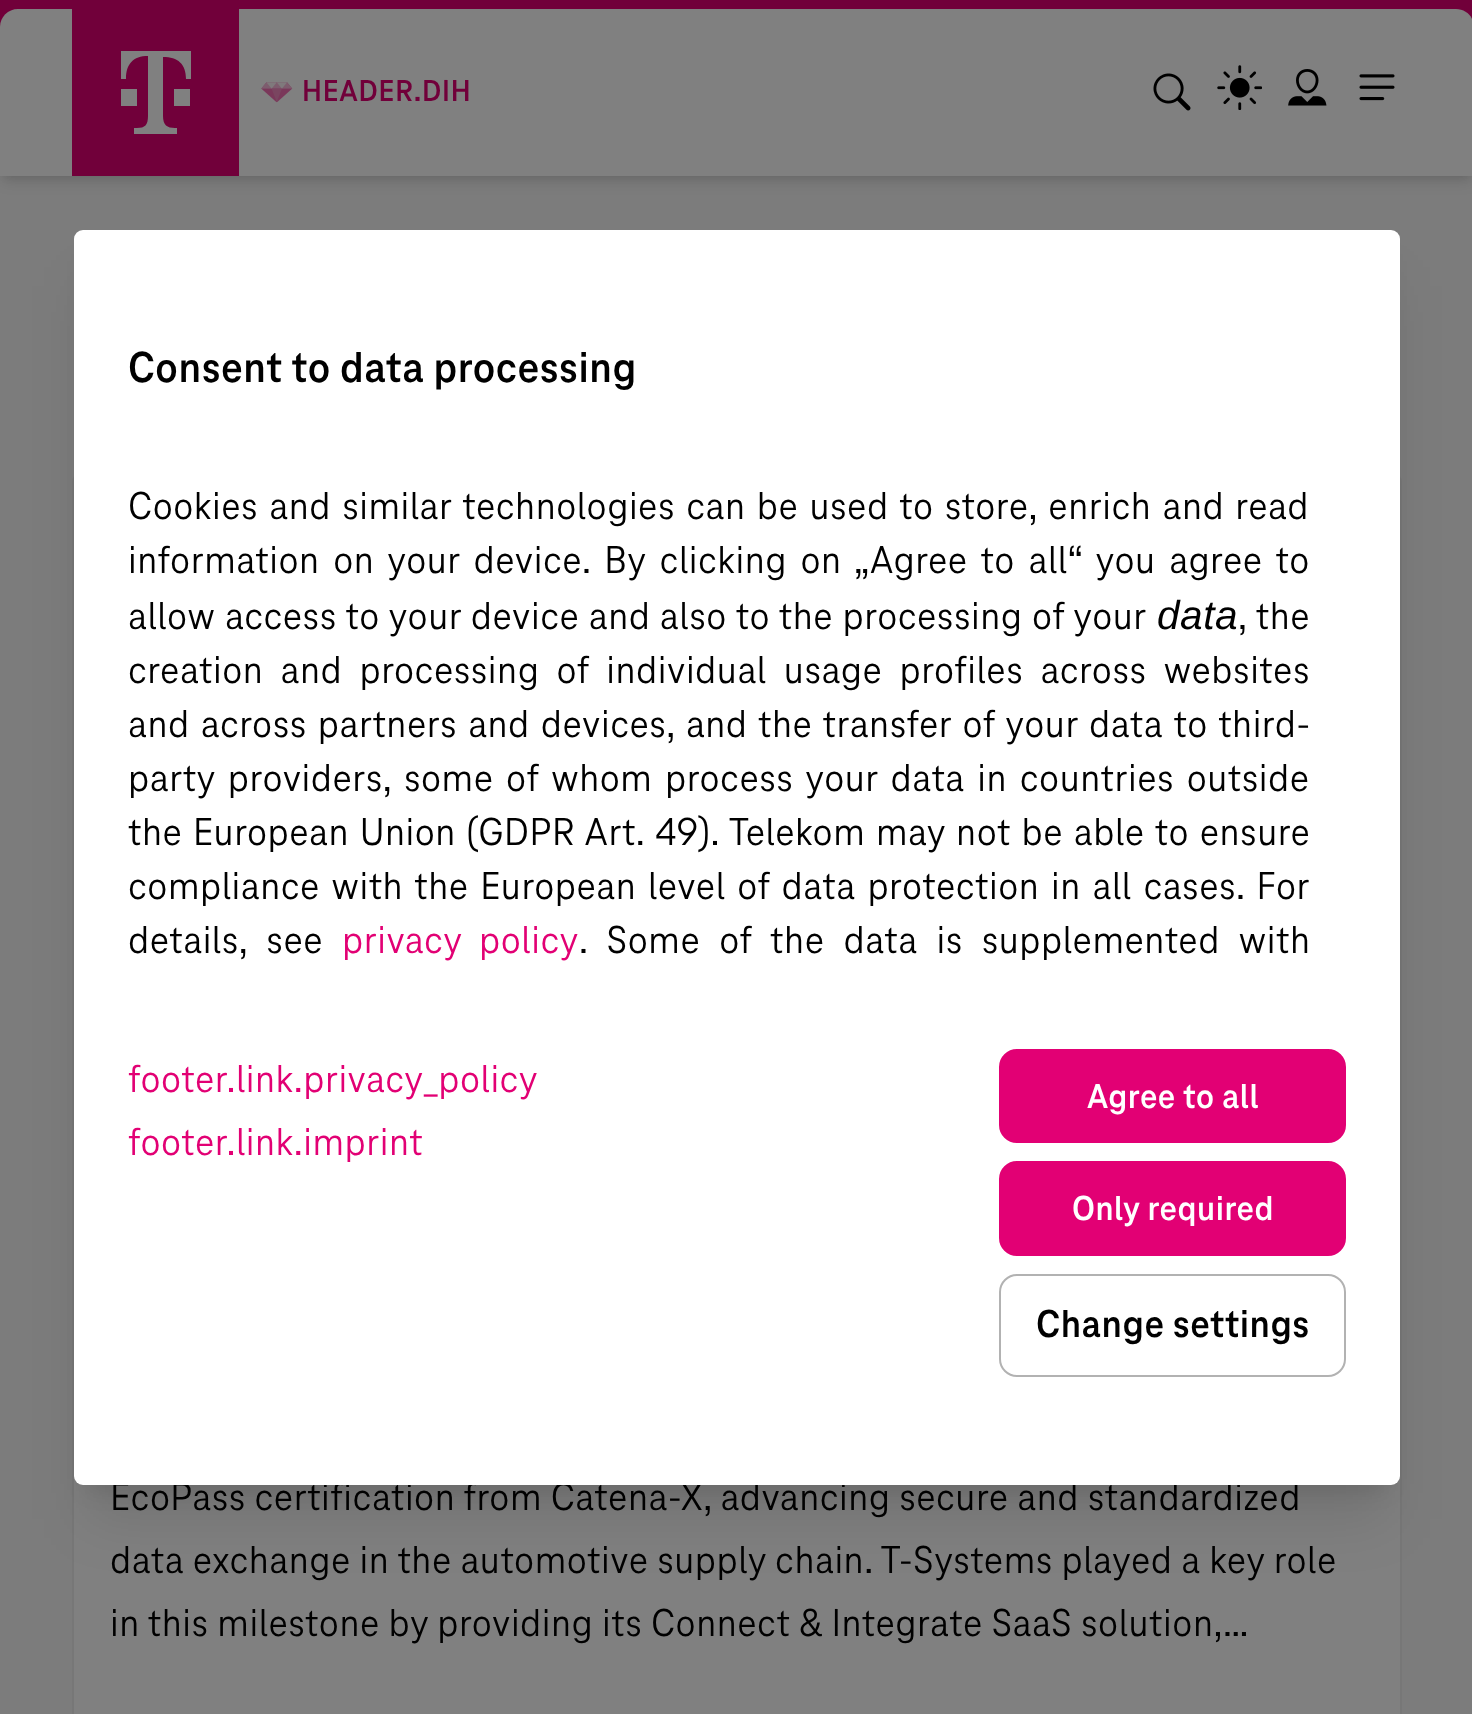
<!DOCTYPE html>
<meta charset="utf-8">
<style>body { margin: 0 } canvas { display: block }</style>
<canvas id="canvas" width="1472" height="1714"></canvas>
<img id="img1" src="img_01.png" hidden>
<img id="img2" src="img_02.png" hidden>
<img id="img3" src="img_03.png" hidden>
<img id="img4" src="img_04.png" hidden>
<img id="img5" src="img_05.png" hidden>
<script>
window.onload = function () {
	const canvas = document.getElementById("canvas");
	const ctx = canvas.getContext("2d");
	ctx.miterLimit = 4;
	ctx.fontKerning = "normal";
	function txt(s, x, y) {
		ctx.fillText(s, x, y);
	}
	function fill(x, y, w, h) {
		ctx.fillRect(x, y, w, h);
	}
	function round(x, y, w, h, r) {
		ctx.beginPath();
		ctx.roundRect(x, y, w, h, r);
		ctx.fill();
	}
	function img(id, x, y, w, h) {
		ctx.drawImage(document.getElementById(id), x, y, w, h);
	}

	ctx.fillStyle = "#7C7C7C";
	fill(0, 0, 1472, 1714);
	ctx.fillStyle = "rgba(0, 0, 0, 0.1)";
	ctx.filter = "blur(4.5px)";
	ctx.beginPath();
	ctx.rect(5, 9, 1464, 167);
	ctx.fill();
	ctx.filter = "none";
	ctx.filter = "blur(7px)";
	ctx.beginPath();
	ctx.rect(2, 11, 1470, 171);
	ctx.fill();
	ctx.filter = "none";
	ctx.fillStyle = "#71003A";
	fill(0, 0, 1472, 27);
	ctx.fillStyle = "#808080";
	ctx.beginPath();
	ctx.moveTo(18, 9);
	ctx.lineTo(1456, 9);
	ctx.bezierCurveTo(1466, 9, 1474, 17, 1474, 27);
	ctx.lineTo(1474, 176);
	ctx.lineTo(0, 176);
	ctx.lineTo(0, 27);
	ctx.bezierCurveTo(0, 17, 8, 9, 18, 9);
	ctx.closePath();
	ctx.fill();
	ctx.fillStyle = "#71003A";
	fill(72, 9, 167, 167);
	ctx.fillStyle = "#808080";
	ctx.beginPath();
	ctx.moveTo(137, 106);
	ctx.lineTo(121, 106);
	ctx.lineTo(121, 89);
	ctx.lineTo(137, 89);
	ctx.closePath();
	ctx.moveTo(121, 51);
	ctx.lineTo(121, 79);
	ctx.lineTo(126, 79);
	ctx.bezierCurveTo(126, 64, 133, 56, 148, 56);
	ctx.lineTo(148, 116);
	ctx.bezierCurveTo(148, 125, 145, 128, 137, 128);
	ctx.lineTo(134, 128);
	ctx.lineTo(134, 134);
	ctx.lineTo(177, 134);
	ctx.lineTo(177, 128);
	ctx.lineTo(175, 128);
	ctx.bezierCurveTo(167, 128, 163, 125, 163, 116);
	ctx.lineTo(163, 57);
	ctx.bezierCurveTo(178, 57, 186, 64, 186, 79);
	ctx.lineTo(191, 79);
	ctx.lineTo(191, 51);
	ctx.closePath();
	ctx.moveTo(174, 106);
	ctx.lineTo(190, 106);
	ctx.lineTo(190, 89);
	ctx.lineTo(174, 89);
	ctx.closePath();
	ctx.fill();
	img("img1", 261, 82, 32, 21);
	img("img2", 1153, 73, 38, 38);
	img("img3", 1217, 65, 45, 45);
	img("img4", 1288, 69, 39, 37);
	img("img5", 1359, 74, 36, 27);
	ctx.beginPath();
	ctx.roundRect(73, 474, 1328, 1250, 8);
	ctx.fill();
	ctx.strokeStyle = "#777777";
	ctx.lineWidth = 2;
	ctx.stroke();
	ctx.fillStyle = "rgba(0, 0, 0, 0.1)";
	ctx.filter = "blur(11px)";
	ctx.beginPath();
	ctx.rect(88, 261, 1298, 1229);
	ctx.fill();
	ctx.filter = "none";
	ctx.filter = "blur(28px)";
	ctx.beginPath();
	ctx.rect(86, 286, 1302, 1233);
	ctx.fill();
	ctx.filter = "none";
	ctx.letterSpacing = "0.75px";
	ctx.font = "bold 31.5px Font";
	ctx.fillStyle = "#71003A";
	txt("HEADER.DIH", 302, 101);
	ctx.letterSpacing = "0.55px";
	ctx.font = "40.5px Font";
	ctx.fillStyle = "#000000";
	txt("EcoPass certification from Catena-X, advancing secure and standardized", 110, 1510);
	txt("data exchange in the automotive supply chain. T-Systems played a key role", 110, 1573);
	txt("in this milestone by providing its Connect & Integrate SaaS solution,…", 110, 1636);
	ctx.fillStyle = "#FFFFFF";
	round(74, 230, 1326, 1255, 9);
	ctx.font = "bold 45px Font";
	ctx.fillStyle = "#000000";
	txt("Consent to data processing", 128, 382);
	ctx.wordSpacing = "2.5px";
	ctx.font = "40.5px Font";
	txt("Cookies and similar technologies can be used to store, enrich and read", 128, 519);
	ctx.wordSpacing = "4.9px";
	txt("information on your device. By clicking on „Agree to all“ you agree to", 128, 573);
	ctx.wordSpacing = "0.75px";
	txt("allow access to your device and also to the processing of your", 128, 629);
	ctx.wordSpacing = "0px";
	ctx.font = "italic 40.5px Liberation Sans";
	txt("data", 1157, 629);
	ctx.wordSpacing = "1px";
	ctx.font = "40.5px Font";
	txt(", the", 1238, 629);
	ctx.wordSpacing = "8.5px";
	txt("creation and processing of individual usage profiles across websites", 128, 683);
	ctx.wordSpacing = "2.25px";
	txt("and across partners and devices, and the transfer of your data to third-", 128, 737);
	ctx.wordSpacing = "3.9px";
	txt("party providers, some of whom process your data in countries outside", 128, 791);
	ctx.wordSpacing = "2px";
	txt("the European Union (GDPR Art. 49). Telekom may not be able to ensure", 128, 845);
	ctx.wordSpacing = "3px";
	txt("compliance with the European level of data protection in all cases. For", 128, 899);
	ctx.wordSpacing = "10.25px";
	txt("details, see", 128, 953);
	ctx.wordSpacing = "8.5px";
	ctx.fillStyle = "#E20074";
	txt("privacy policy", 342, 953);
	ctx.wordSpacing = "10.25px";
	ctx.fillStyle = "#000000";
	txt(". Some of the data is supplemented with", 579, 953);
	ctx.wordSpacing = "0px";
	ctx.fillStyle = "#E20074";
	txt("footer.link.privacy_policy", 128, 1092);
	txt("footer.link.imprint", 128, 1155);
	ctx.beginPath();
	ctx.roundRect(1000, 1050, 345, 92, 17);
	ctx.fill();
	ctx.strokeStyle = "#E20074";
	ctx.stroke();
	ctx.font = "bold 36px Font";
	ctx.fillStyle = "#FFFFFF";
	txt("Agree to all", 1087, 1108);
	ctx.fillStyle = "#E20074";
	ctx.beginPath();
	ctx.roundRect(1000, 1162, 345, 93, 17);
	ctx.fill();
	ctx.stroke();
	ctx.fillStyle = "#FFFFFF";
	txt("Only required", 1072, 1220);
	ctx.beginPath();
	ctx.roundRect(1000, 1275, 345, 101, 17);
	ctx.strokeStyle = "#B2B2B2";
	ctx.stroke();
	ctx.font = "bold 40.5px Font";
	ctx.fillStyle = "#000000";
	txt("Change settings", 1036, 1337);
};
</script>
